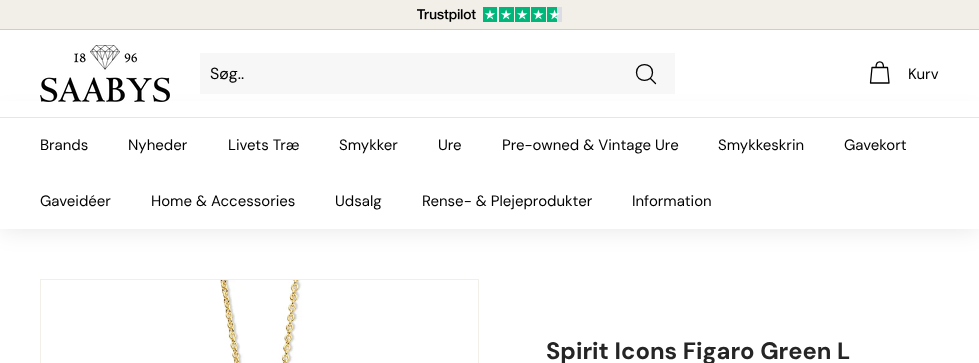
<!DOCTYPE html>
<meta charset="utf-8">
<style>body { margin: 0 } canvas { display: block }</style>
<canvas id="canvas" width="979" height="363"></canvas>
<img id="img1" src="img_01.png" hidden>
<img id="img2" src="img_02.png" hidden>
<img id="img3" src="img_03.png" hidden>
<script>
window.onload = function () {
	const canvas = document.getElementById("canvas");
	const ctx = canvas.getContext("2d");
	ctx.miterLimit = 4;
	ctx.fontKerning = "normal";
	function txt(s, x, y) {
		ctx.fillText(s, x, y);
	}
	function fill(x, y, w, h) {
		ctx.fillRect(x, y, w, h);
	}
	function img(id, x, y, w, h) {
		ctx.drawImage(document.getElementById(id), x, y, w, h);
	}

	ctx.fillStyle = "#FFFFFF";
	fill(0, 0, 979, 363);
	ctx.fillStyle = "#F2EEE8";
	fill(0, 0, 979, 29);
	img("img1", 417, 7, 145, 15);
	ctx.fillStyle = "#D0CDC8";
	fill(0, 29, 979, 1);
	ctx.fillStyle = "rgba(0, 0, 0, 0.1)";
	ctx.filter = "blur(12.5px)";
	ctx.beginPath();
	ctx.rect(0, 117, 979, 112);
	ctx.fill();
	ctx.filter = "none";
	ctx.fillStyle = "#FFFFFF";
	fill(0, 101, 979, 16);
	img("img2", 40, 45, 130, 57);
	ctx.fillStyle = "#F7F7F7";
	fill(200, 53, 475, 41);
	ctx.beginPath();
	ctx.moveTo(652.5, 72.5);
	ctx.bezierCurveTo(652.5, 83, 636.5, 83, 636.5, 72.5);
	ctx.bezierCurveTo(636.5, 62, 652.5, 62, 652.5, 72.5);
	ctx.closePath();
	ctx.moveTo(655.5, 83.5);
	ctx.lineTo(650.5, 78.5);
	ctx.strokeStyle = "#000000";
	ctx.lineWidth = 1.3;
	ctx.lineCap = "round";
	ctx.lineJoin = "round";
	ctx.stroke();
	ctx.beginPath();
	ctx.moveTo(876, 67.5);
	ctx.bezierCurveTo(876, 60, 883.5, 60, 883.5, 67.5);
	ctx.moveTo(872, 67.5);
	ctx.lineTo(887.5, 67.5);
	ctx.lineTo(889, 83);
	ctx.lineTo(870.5, 83);
	ctx.closePath();
	ctx.stroke();
	ctx.fillStyle = "#FFFFFF";
	fill(0, 118, 979, 111);
	ctx.fillStyle = "#E6E6E6";
	fill(0, 117, 979, 1);
	ctx.strokeStyle = "#F2EEE8";
	ctx.lineWidth = 1;
	ctx.lineJoin = "miter";
	ctx.strokeRect(40.5, 279.5, 438, 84);
	img("img3", 220, 280, 82, 83);
	ctx.font = "16px DM Sans";
	ctx.fillStyle = "#000000";
	txt("Søg..", 210, 79);
	ctx.font = "15px DM Sans";
	txt("Kurv", 908, 79);
	txt("Brands", 40, 150);
	txt("Nyheder", 128, 150);
	txt("Livets Træ", 228, 150);
	txt("Smykker", 339, 150);
	txt("Ure", 438, 150);
	txt("Pre-owned & Vintage Ure", 502, 150);
	txt("Smykkeskrin", 718, 150);
	txt("Gavekort", 844, 150);
	txt("Gaveidéer", 40, 206);
	txt("Home & Accessories", 151, 206);
	txt("Udsalg", 335, 206);
	txt("Rense- & Plejeprodukter", 422, 206);
	txt("Information", 632, 206);
	ctx.font = "bold 23.75px DM Sans";
	ctx.fillStyle = "#252525";
	txt("Spirit Icons Figaro Green L", 546, 359);
};
</script>
